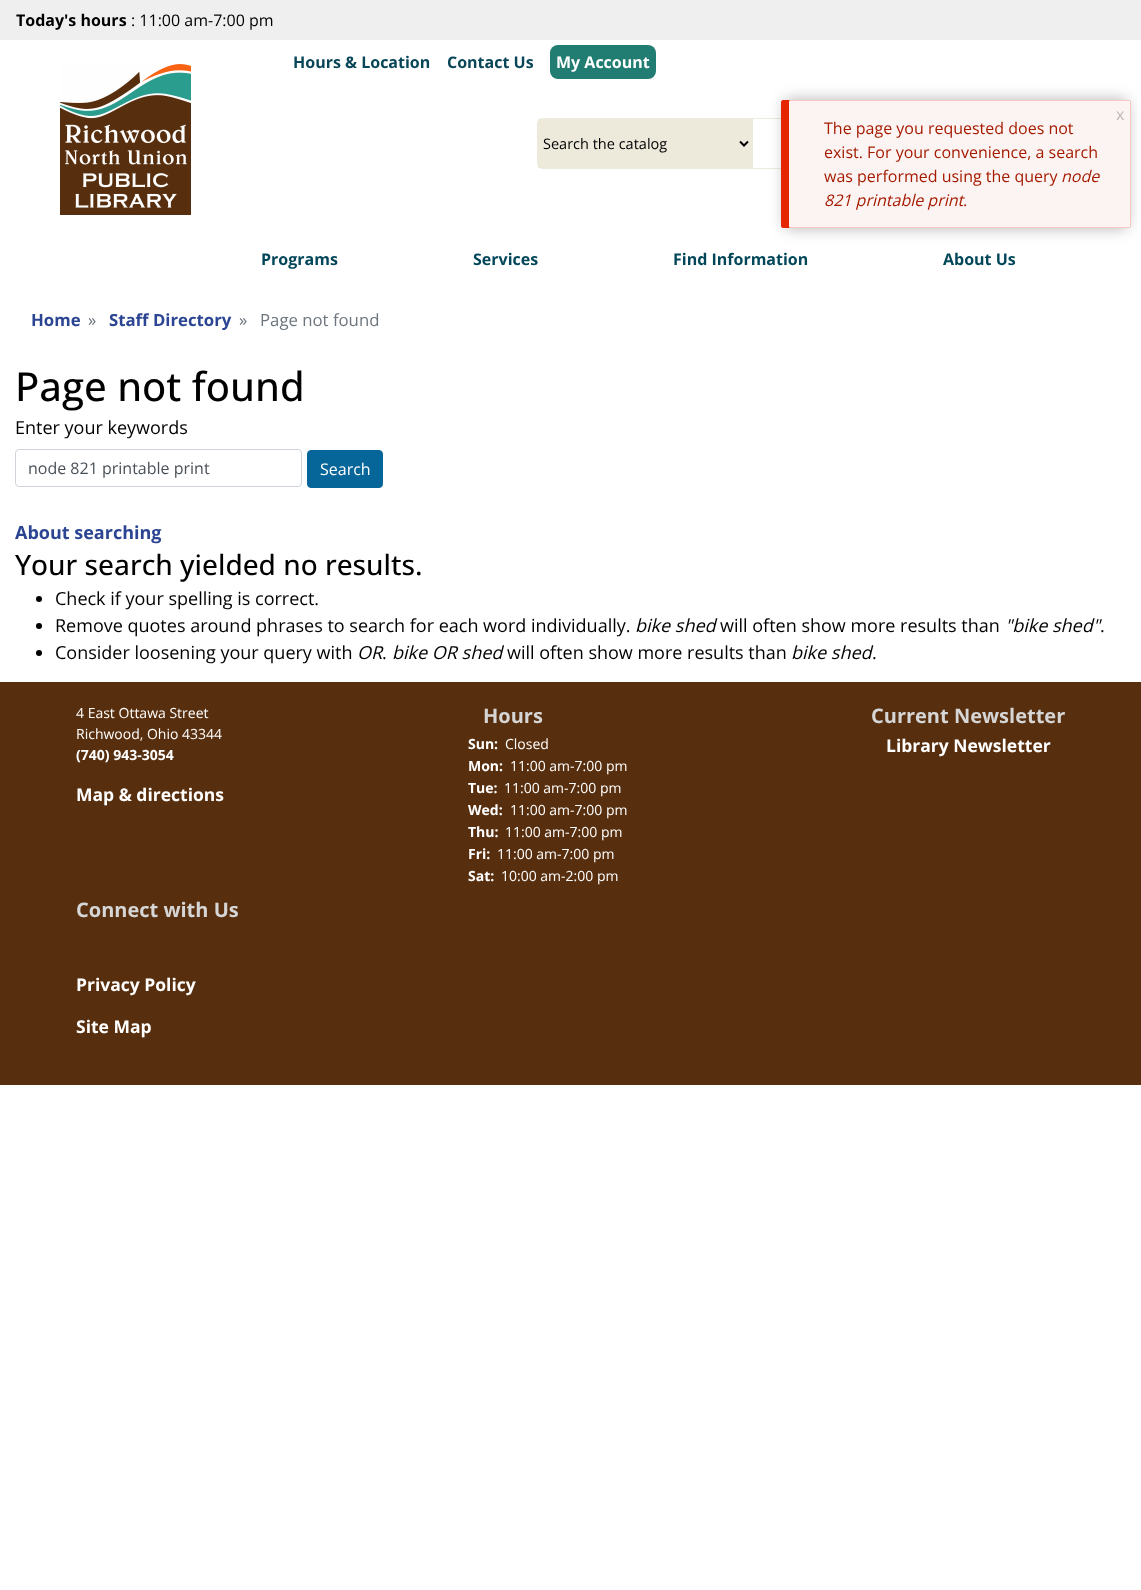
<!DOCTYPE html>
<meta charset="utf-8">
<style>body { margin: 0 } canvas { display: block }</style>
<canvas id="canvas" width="1141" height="1590"></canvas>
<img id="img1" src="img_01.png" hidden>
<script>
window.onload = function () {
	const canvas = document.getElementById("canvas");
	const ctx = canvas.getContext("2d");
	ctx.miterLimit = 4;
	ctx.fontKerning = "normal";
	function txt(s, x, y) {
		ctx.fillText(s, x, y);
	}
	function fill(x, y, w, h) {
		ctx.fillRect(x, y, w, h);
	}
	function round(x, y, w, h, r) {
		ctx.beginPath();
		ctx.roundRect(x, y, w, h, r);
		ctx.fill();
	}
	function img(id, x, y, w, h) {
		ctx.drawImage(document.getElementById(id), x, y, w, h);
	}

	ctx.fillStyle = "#FFFFFF";
	fill(0, 0, 1141, 1590);
	ctx.fillStyle = "#EFEFEF";
	fill(0, 0, 1141, 40);
	img("img1", 60, 64, 131, 151);
	ctx.fillStyle = "#217D72";
	round(550, 45, 106, 34, 8);
	ctx.beginPath();
	ctx.roundRect(537.5, 118.5, 555, 50, 5.5);
	ctx.strokeStyle = "#EDEADC";
	ctx.stroke();
	ctx.fillStyle = "#EDEADC";
	fill(538, 119, 215, 49);
	ctx.beginPath();
	ctx.moveTo(740, 141.5);
	ctx.lineTo(744, 145.5);
	ctx.lineTo(748, 141.5);
	ctx.strokeStyle = "#000000";
	ctx.lineWidth = 2;
	ctx.stroke();
	ctx.fillStyle = "rgba(0, 0, 0, 0.3)";
	ctx.filter = "blur(7.5px)";
	ctx.beginPath();
	ctx.roundRect(785, 100, 342, 128, 2);
	ctx.fill();
	ctx.filter = "none";
	ctx.fillStyle = "#E62600";
	ctx.beginPath();
	ctx.moveTo(783, 100);
	ctx.bezierCurveTo(782, 100, 781, 101, 781, 102);
	ctx.lineTo(781, 226);
	ctx.bezierCurveTo(781, 227, 782, 228, 783, 228);
	ctx.lineTo(791, 228);
	ctx.bezierCurveTo(790, 228, 789, 227, 789, 226);
	ctx.lineTo(789, 102);
	ctx.bezierCurveTo(789, 101, 790, 100, 791, 100);
	ctx.closePath();
	ctx.fill();
	ctx.fillStyle = "#FCF4F2";
	round(789, 100, 342, 128, 2);
	ctx.fillStyle = "#F9C9BF";
	fill(790, 100, 340, 1);
	fill(1130, 101, 1, 126);
	fill(790, 227, 340, 1);
	ctx.beginPath();
	ctx.roundRect(15.5, 449.5, 286, 37, 3.5);
	ctx.strokeStyle = "#CED4DA";
	ctx.lineWidth = 1;
	ctx.stroke();
	ctx.fillStyle = "#066699";
	ctx.beginPath();
	ctx.roundRect(307.5, 450.5, 75, 37, 3.5);
	ctx.fill();
	ctx.strokeStyle = "#066699";
	ctx.stroke();
	ctx.fillStyle = "#000000";
	ctx.beginPath();
	ctx.arc(39, 599, 3, 0, Math.PI * 2);
	ctx.fill();
	ctx.beginPath();
	ctx.arc(39, 626, 3, 0, Math.PI * 2);
	ctx.fill();
	ctx.beginPath();
	ctx.arc(39, 653, 3, 0, Math.PI * 2);
	ctx.fill();
	ctx.fillStyle = "#582F0E";
	fill(0, 682, 1141, 403);
	ctx.font = "bold 16px Open Sans";
	ctx.fillStyle = "#000000";
	txt("Today's hours", 16, 26);
	ctx.font = "16px Open Sans";
	txt(": 11:00 am-7:00 pm", 131, 26);
	ctx.font = "bold 16px Open Sans";
	ctx.fillStyle = "#084658";
	txt("Hours & Location", 293, 68);
	txt("Contact Us", 447, 68);
	ctx.fillStyle = "#FFFFFF";
	txt("My Account", 556, 68);
	ctx.font = "14.5px Open Sans";
	ctx.fillStyle = "#000000";
	txt("Search the catalog", 543, 149);
	ctx.font = "bold 16px Open Sans";
	ctx.fillStyle = "#024659";
	txt("Programs", 261, 265);
	txt("Services", 473, 265);
	txt("Find Information", 673, 265);
	txt("About Us", 943, 265);
	ctx.font = "16px Open Sans";
	ctx.fillStyle = "#BDB7B6";
	txt("x", 1116, 120);
	ctx.fillStyle = "#A51B00";
	txt("The page you requested does not", 824, 134);
	txt("exist. For your convenience, a search", 824, 158);
	txt("was performed using the query", 824, 182);
	ctx.font = "italic 16px Open Sans";
	txt("node", 1061, 182);
	txt("821 printable print", 824, 206);
	ctx.font = "16px Open Sans";
	txt(".", 963, 206);
	ctx.font = "bold 16.75px Open Sans";
	ctx.fillStyle = "#2B4593";
	txt("Home", 31, 326);
	ctx.font = "16.75px Open Sans";
	ctx.fillStyle = "#6C757D";
	txt("»", 88, 326);
	ctx.font = "bold 16.75px Open Sans";
	ctx.fillStyle = "#2B4593";
	txt("Staff Directory", 109, 326);
	ctx.font = "16.75px Open Sans";
	ctx.fillStyle = "#6C757D";
	txt("»", 239, 326);
	txt("Page not found", 260, 326);
	ctx.font = "500 40px Open Sans";
	ctx.fillStyle = "#000000";
	txt("Page not found", 15, 401);
	ctx.font = "18px Open Sans";
	txt("Enter your keywords", 15, 434);
	ctx.font = "16px Open Sans";
	ctx.fillStyle = "#495057";
	txt("node 821 printable print", 28, 474);
	ctx.fillStyle = "#FFFFFF";
	txt("Search", 320, 475);
	ctx.font = "bold 18px Open Sans";
	ctx.fillStyle = "#2B4593";
	txt("About searching", 15, 539);
	ctx.font = "500 28px Open Sans";
	ctx.fillStyle = "#000000";
	txt("Your search yielded no results.", 15, 575);
	ctx.font = "18px Open Sans";
	txt("Check if your spelling is correct.", 55, 605);
	txt("Remove quotes around phrases to search for each word individually.", 55, 632);
	ctx.font = "italic 18px Open Sans";
	txt("bike shed", 635, 632);
	ctx.font = "18px Open Sans";
	txt("will often show more results than", 720, 632);
	ctx.font = "italic 18px Open Sans";
	txt("\"bike shed\"", 1005, 632);
	ctx.font = "18px Open Sans";
	txt(".", 1100, 632);
	txt("Consider loosening your query with", 55, 659);
	ctx.font = "italic 18px Open Sans";
	txt("OR", 357, 659);
	txt("bike OR shed", 392, 659);
	ctx.font = "18px Open Sans";
	txt("will often show more results than", 507, 659);
	ctx.font = "italic 18px Open Sans";
	txt("bike shed", 791, 659);
	ctx.font = "18px Open Sans";
	txt(".", 382, 659);
	txt(".", 872, 659);
	ctx.font = "14px Open Sans";
	ctx.fillStyle = "#FFFFFF";
	txt("4 East Ottawa Street", 76, 718);
	txt("Richwood, Ohio 43344", 76, 739);
	ctx.font = "bold 14px Open Sans";
	txt("(740) 943-3054", 76, 760);
	ctx.font = "bold 17.5px Open Sans";
	txt("Map & directions", 76, 801);
	ctx.font = "bold 20px Open Sans";
	ctx.fillStyle = "#D6D6D6";
	txt("Hours", 483, 723);
	ctx.font = "bold 14px Open Sans";
	ctx.fillStyle = "#FFFFFF";
	txt("Sun:", 468, 749);
	ctx.font = "14px Open Sans";
	txt("Closed", 505, 749);
	ctx.font = "bold 14px Open Sans";
	txt("Mon:", 468, 771);
	ctx.font = "14px Open Sans";
	txt("11:00 am-7:00 pm", 510, 771);
	ctx.font = "bold 14px Open Sans";
	txt("Tue:", 468, 793);
	ctx.font = "14px Open Sans";
	txt("11:00 am-7:00 pm", 504, 793);
	ctx.font = "bold 14px Open Sans";
	txt("Wed:", 468, 815);
	ctx.font = "14px Open Sans";
	txt("11:00 am-7:00 pm", 510, 815);
	ctx.font = "bold 14px Open Sans";
	txt("Thu:", 468, 837);
	ctx.font = "14px Open Sans";
	txt("11:00 am-7:00 pm", 505, 837);
	ctx.font = "bold 14px Open Sans";
	txt("Fri:", 468, 859);
	ctx.font = "14px Open Sans";
	txt("11:00 am-7:00 pm", 497, 859);
	ctx.font = "bold 14px Open Sans";
	txt("Sat:", 468, 881);
	ctx.font = "14px Open Sans";
	txt("10:00 am-2:00 pm", 501, 881);
	ctx.font = "bold 20px Open Sans";
	ctx.fillStyle = "#D6D6D6";
	txt("Current Newsletter", 871, 723);
	ctx.font = "bold 17.5px Open Sans";
	ctx.fillStyle = "#FFFFFF";
	txt("Library Newsletter", 886, 752);
	ctx.font = "bold 20px Open Sans";
	ctx.fillStyle = "#D6D6D6";
	txt("Connect with Us", 76, 917);
	ctx.font = "bold 17.5px Open Sans";
	ctx.fillStyle = "#FFFFFF";
	txt("Privacy Policy", 76, 991);
	txt("Site Map", 76, 1033);
};
</script>
